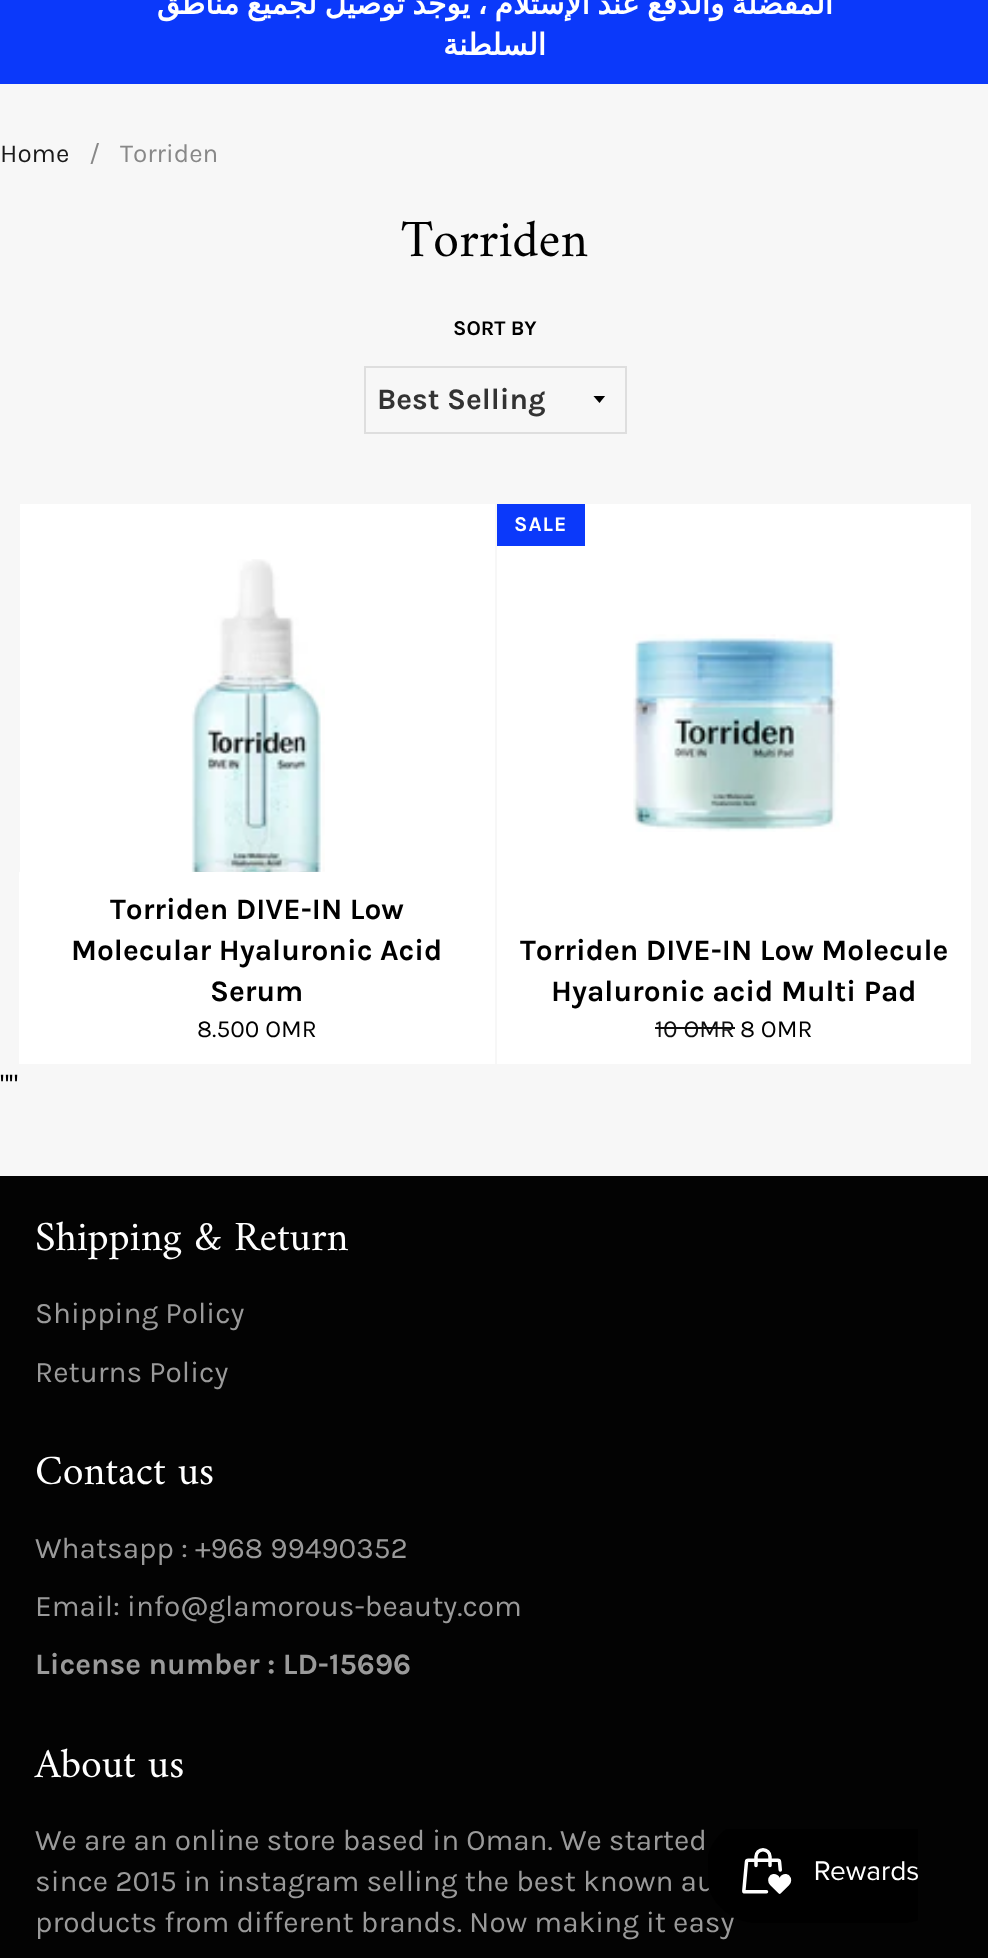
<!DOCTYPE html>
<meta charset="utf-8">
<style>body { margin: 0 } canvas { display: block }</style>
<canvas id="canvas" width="988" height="1958"></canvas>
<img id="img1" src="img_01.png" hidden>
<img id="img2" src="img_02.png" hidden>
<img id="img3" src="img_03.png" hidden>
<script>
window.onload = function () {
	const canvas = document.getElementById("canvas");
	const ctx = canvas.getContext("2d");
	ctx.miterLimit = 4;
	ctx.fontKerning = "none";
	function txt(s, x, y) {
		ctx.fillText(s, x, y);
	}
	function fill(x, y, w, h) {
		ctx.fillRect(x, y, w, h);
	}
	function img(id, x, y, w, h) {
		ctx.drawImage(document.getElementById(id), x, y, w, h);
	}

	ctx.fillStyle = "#F7F7F7";
	fill(0, 0, 988, 1958);
	ctx.fillStyle = "#0B39FA";
	fill(0, 0, 988, 84);
	ctx.save();
	ctx.beginPath();
	ctx.rect(593, 396, 14, 8);
	ctx.clip();
	ctx.fillStyle = "#000000";
	ctx.beginPath();
	ctx.moveTo(593, 395.5);
	ctx.lineTo(599.5, 403);
	ctx.lineTo(605.5, 395.5);
	ctx.closePath();
	ctx.fill();
	ctx.restore();
	ctx.strokeStyle = "#DEDEDE";
	ctx.lineWidth = 2;
	ctx.strokeRect(365, 367, 261, 66);
	ctx.fillStyle = "#FFFFFF";
	fill(20, 504, 475, 368);
	img("img1", 191, 559, 134, 313);
	fill(19, 872, 476, 192);
	fill(497, 504, 474, 560);
	ctx.fillStyle = "#0B39FA";
	fill(497, 504, 88, 42);
	img("img2", 633, 634, 207, 198);
	ctx.fillStyle = "#0D0D0D";
	fill(655, 1027, 80, 2);
	ctx.fillStyle = "#030303";
	fill(0, 1176, 988, 782);
	ctx.wordSpacing = "-2px";
	ctx.direction = "rtl";
	ctx.font = "bold 29.75px DejaVu Sans";
	ctx.fillStyle = "#FFFFFF";
	txt("المفضلة والدفع عند الإستلام ، يوجد توصيل لجميع مناطق", 833, 14);
	ctx.wordSpacing = "0px";
	txt("السلطنة", 546, 55);
	ctx.direction = "ltr";
	ctx.font = "26px Karla";
	ctx.fillStyle = "#1A1A1A";
	txt("Home", 0, 162);
	ctx.fillStyle = "#888888";
	txt("/", 89, 162);
	txt("Torriden", 120, 162);
	ctx.font = "52.5px Amiri";
	ctx.fillStyle = "#000000";
	txt("Torriden", 401, 256);
	ctx.font = "bold 21px Karla";
	txt("SORT BY", 453, 335);
	ctx.font = "bold 29.75px Karla";
	ctx.fillStyle = "#333333";
	txt("Best Selling", 377, 409);
	ctx.fillStyle = "#000000";
	txt("Torriden DIVE-IN Low", 110, 919);
	txt("Molecular Hyaluronic Acid", 71, 960);
	txt("Serum", 210, 1001);
	ctx.font = "24.5px Karla";
	txt("8.500 OMR", 197, 1037);
	ctx.letterSpacing = "1px";
	ctx.font = "bold 21px Karla";
	ctx.fillStyle = "#FFFFFF";
	txt("SALE", 514, 531);
	ctx.letterSpacing = "0px";
	ctx.font = "bold 29.75px Karla";
	ctx.fillStyle = "#000000";
	txt("Torriden DIVE-IN Low Molecule", 520, 960);
	txt("Hyaluronic acid Multi Pad", 551, 1001);
	ctx.font = "24.5px Karla";
	ctx.fillStyle = "#0D0D0D";
	txt("10 OMR", 655, 1037);
	ctx.fillStyle = "#000000";
	txt("8 OMR", 740, 1037);
	ctx.font = "29.75px Karla";
	txt("\"\"", 0, 1095);
	ctx.font = "42px Amiri";
	ctx.fillStyle = "#FFFFFF";
	txt("Shipping & Return", 35, 1250);
	ctx.font = "29.75px Karla";
	ctx.fillStyle = "#9A9A9A";
	txt("Shipping Policy", 35, 1323);
	txt("Returns Policy", 35, 1382);
	ctx.font = "42px Amiri";
	ctx.fillStyle = "#FFFFFF";
	txt("Contact us", 35, 1484);
	ctx.font = "29.75px Karla";
	ctx.fillStyle = "#9A9A9A";
	txt("Whatsapp : +968 99490352", 35, 1558);
	txt("Email: info@glamorous-beauty.com", 35, 1616);
	ctx.font = "bold 29.75px Karla";
	txt("License number : LD-15696", 35, 1674);
	ctx.font = "42px Amiri";
	ctx.fillStyle = "#FFFFFF";
	txt("About us", 35, 1777);
	ctx.font = "29.75px Karla";
	ctx.fillStyle = "#9A9A9A";
	txt("We are an online store based in Oman. We started", 35, 1850);
	txt("since 2015 in instagram selling the best known au", 35, 1891);
	txt("products from different brands. Now making it easy", 35, 1932);
	img("img3", 708, 1829, 210, 94);
};
</script>
